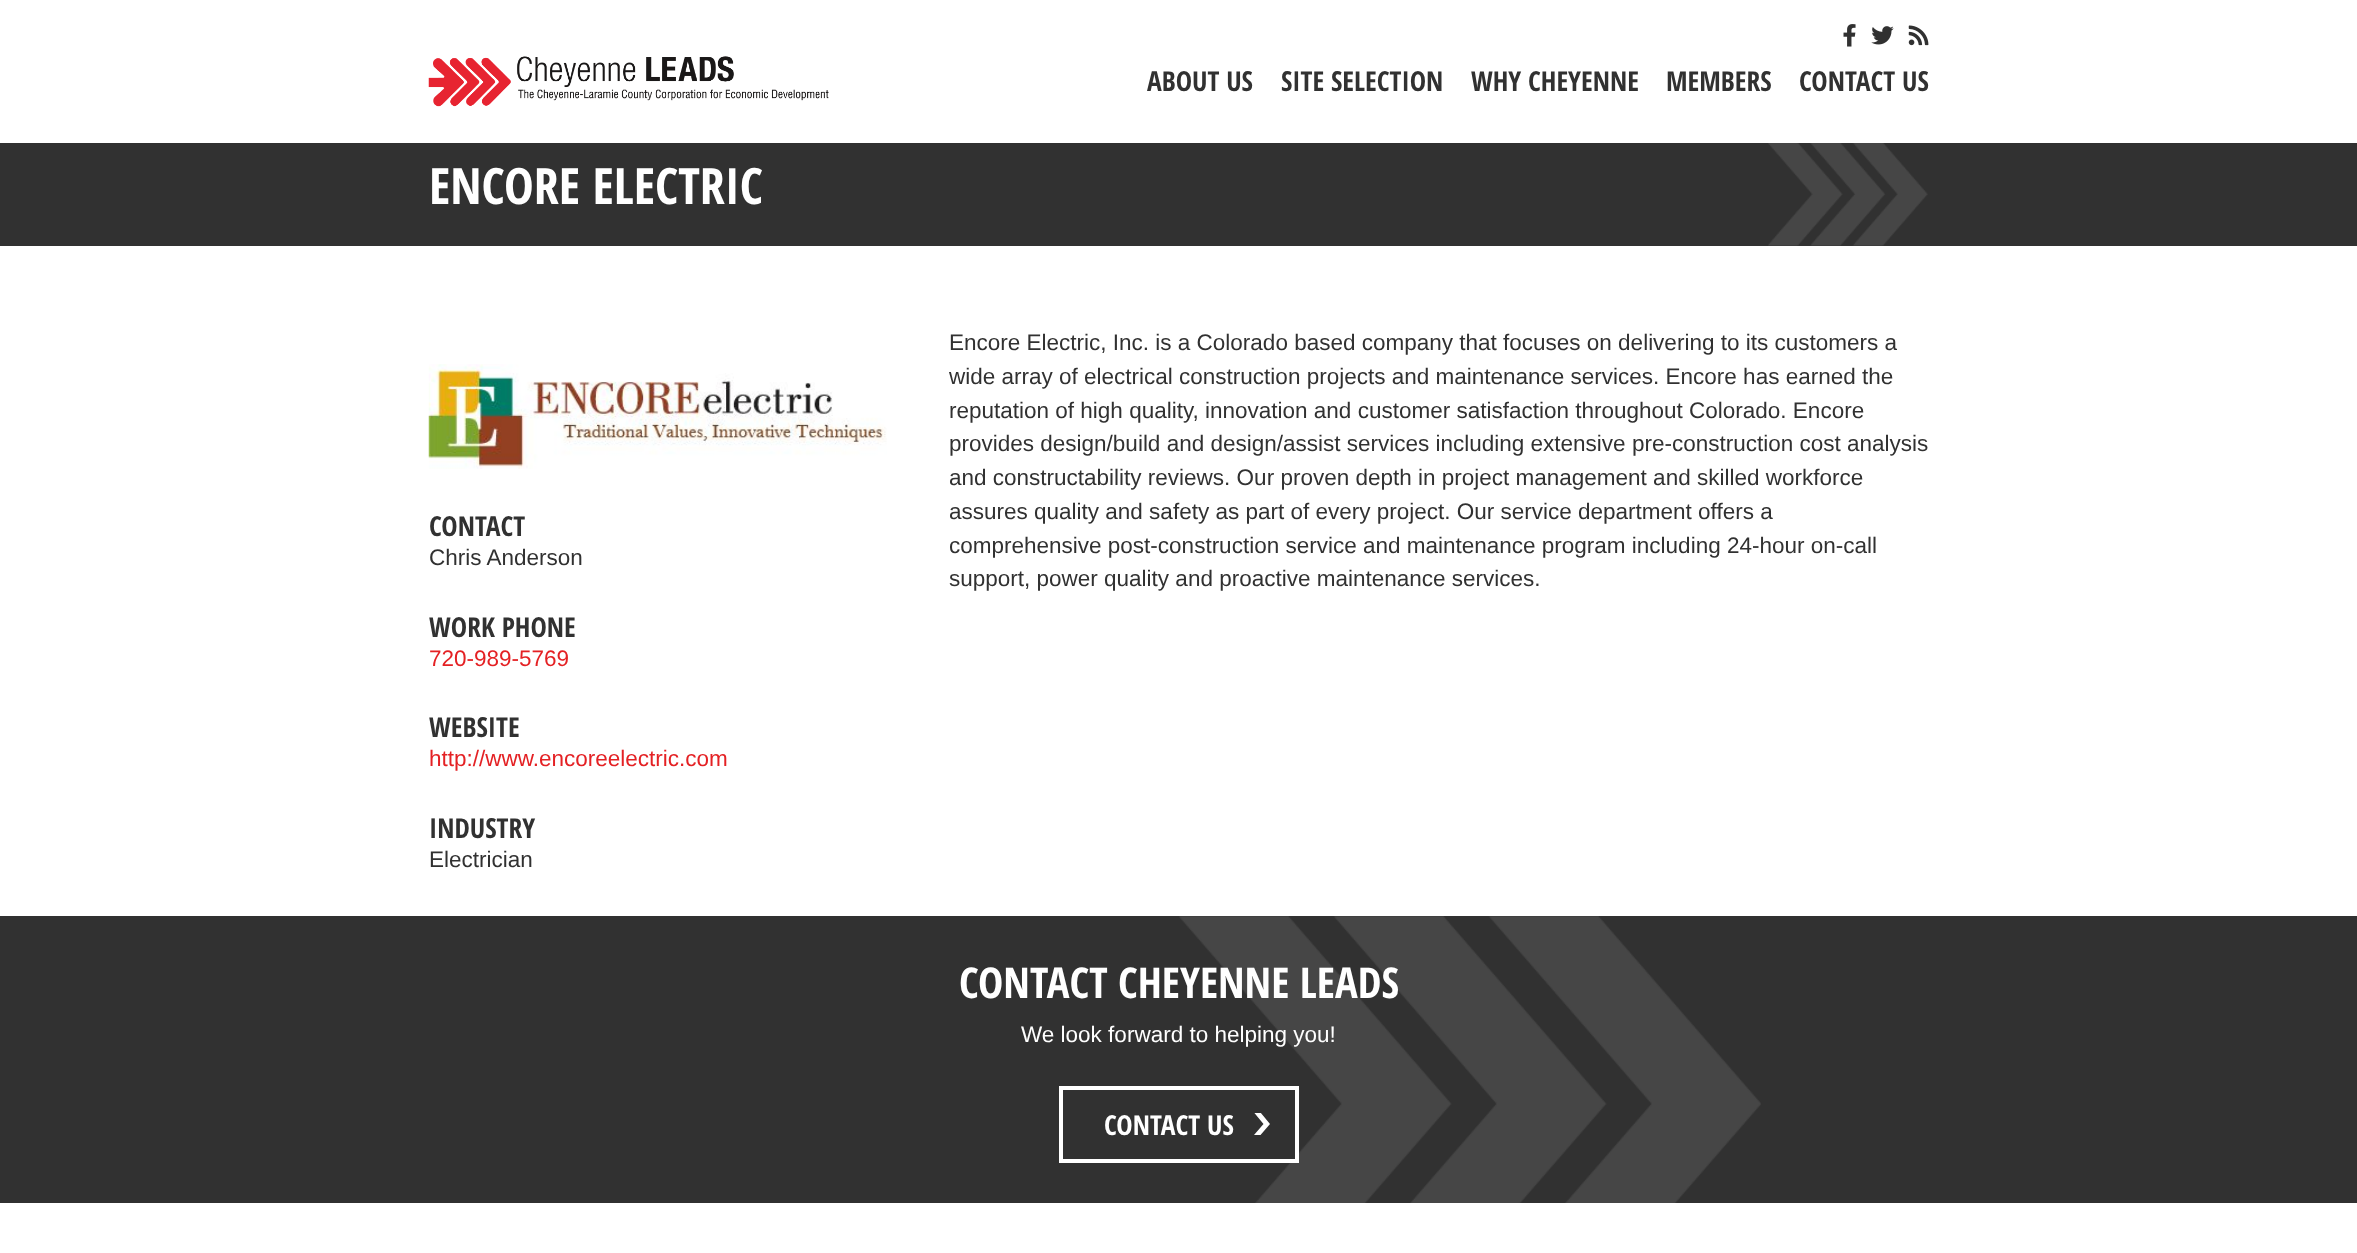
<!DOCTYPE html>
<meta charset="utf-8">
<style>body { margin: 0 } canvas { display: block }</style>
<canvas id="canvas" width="2357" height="1253"></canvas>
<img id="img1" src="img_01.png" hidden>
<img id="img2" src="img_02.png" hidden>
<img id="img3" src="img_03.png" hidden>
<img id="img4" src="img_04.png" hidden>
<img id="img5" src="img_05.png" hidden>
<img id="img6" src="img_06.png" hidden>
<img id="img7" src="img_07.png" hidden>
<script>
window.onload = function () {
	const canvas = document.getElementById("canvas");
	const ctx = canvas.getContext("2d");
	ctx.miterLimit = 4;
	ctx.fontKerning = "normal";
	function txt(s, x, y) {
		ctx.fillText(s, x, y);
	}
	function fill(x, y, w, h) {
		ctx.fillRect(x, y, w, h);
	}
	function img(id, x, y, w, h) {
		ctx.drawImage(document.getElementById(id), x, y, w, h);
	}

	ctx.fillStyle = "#FFFFFF";
	fill(0, 0, 2357, 1253);
	img("img1", 1843, 24, 13, 23);
	img("img2", 1871, 26, 23, 19);
	img("img3", 1908, 25, 21, 21);
	img("img4", 428, 56, 401, 51);
	ctx.fillStyle = "#313131";
	fill(0, 143, 2357, 103);
	img("img5", 1768, 143, 160, 103);
	img("img6", 428, 364, 459, 105);
	fill(0, 916, 2357, 287);
	ctx.font = "bold 27.5px Open Sans Condensed";
	txt("ABOUT US", 1147, 91);
	txt("SITE SELECTION", 1281, 91);
	txt("WHY CHEYENNE", 1471, 91);
	txt("MEMBERS", 1666, 91);
	txt("CONTACT US", 1799, 91);
	ctx.font = "bold 50px Open Sans Condensed";
	ctx.fillStyle = "#FFFFFF";
	txt("ENCORE ELECTRIC", 429, 204);
	ctx.font = "22.5px Liberation Sans";
	ctx.fillStyle = "#313131";
	txt("Encore Electric, Inc. is a Colorado based company that focuses on delivering to its customers a", 949, 350);
	txt("wide array of electrical construction projects and maintenance services. Encore has earned the", 949, 384);
	txt("reputation of high quality, innovation and customer satisfaction throughout Colorado. Encore", 949, 418);
	txt("provides design/build and design/assist services including extensive pre-construction cost analysis", 949, 451);
	txt("and constructability reviews. Our proven depth in project management and skilled workforce", 949, 485);
	txt("assures quality and safety as part of every project. Our service department offers a", 949, 519);
	txt("comprehensive post-construction service and maintenance program including 24-hour on-call", 949, 553);
	txt("support, power quality and proactive maintenance services.", 949, 586);
	ctx.font = "bold 27.5px Open Sans Condensed";
	txt("CONTACT", 429, 536);
	ctx.font = "22.5px Liberation Sans";
	txt("Chris Anderson", 429, 565);
	ctx.font = "bold 27.5px Open Sans Condensed";
	txt("WORK PHONE", 429, 637);
	ctx.font = "22.5px Liberation Sans";
	ctx.fillStyle = "#E42124";
	txt("720-989-5769", 429, 666);
	ctx.font = "bold 27.5px Open Sans Condensed";
	ctx.fillStyle = "#313131";
	txt("WEBSITE", 429, 737);
	ctx.font = "22.5px Liberation Sans";
	ctx.fillStyle = "#E42124";
	txt("http://www.encoreelectric.com", 429, 766);
	ctx.font = "bold 27.5px Open Sans Condensed";
	ctx.fillStyle = "#313131";
	txt("INDUSTRY", 429, 838);
	ctx.font = "22.5px Liberation Sans";
	txt("Electrician", 429, 867);
	ctx.font = "bold 42.5px Open Sans Condensed";
	ctx.fillStyle = "#FFFFFF";
	txt("CONTACT CHEYENNE LEADS", 959, 998);
	ctx.font = "22.5px Liberation Sans";
	txt("We look forward to helping you!", 1021, 1042);
	img("img7", 1179, 916, 582, 287);
	ctx.fillStyle = "#313131";
	fill(1293, 1157, 2, 2);
	ctx.save();
	ctx.beginPath();
	ctx.rect(1254, 1113, 16, 22);
	ctx.clip();
	ctx.fillStyle = "#FFFFFF";
	ctx.beginPath();
	ctx.moveTo(1260.5, 1112.5);
	ctx.lineTo(1254, 1112.5);
	ctx.lineTo(1263.5, 1124);
	ctx.lineTo(1254, 1135);
	ctx.lineTo(1260.5, 1135);
	ctx.lineTo(1270, 1124);
	ctx.closePath();
	ctx.fill();
	ctx.restore();
	ctx.strokeStyle = "#FFFFFF";
	ctx.lineWidth = 4;
	ctx.strokeRect(1061, 1088, 236, 73);
	ctx.font = "bold 27.5px Open Sans Condensed";
	ctx.fillStyle = "#FFFFFF";
	txt("CONTACT US", 1104, 1135);
};
</script>
